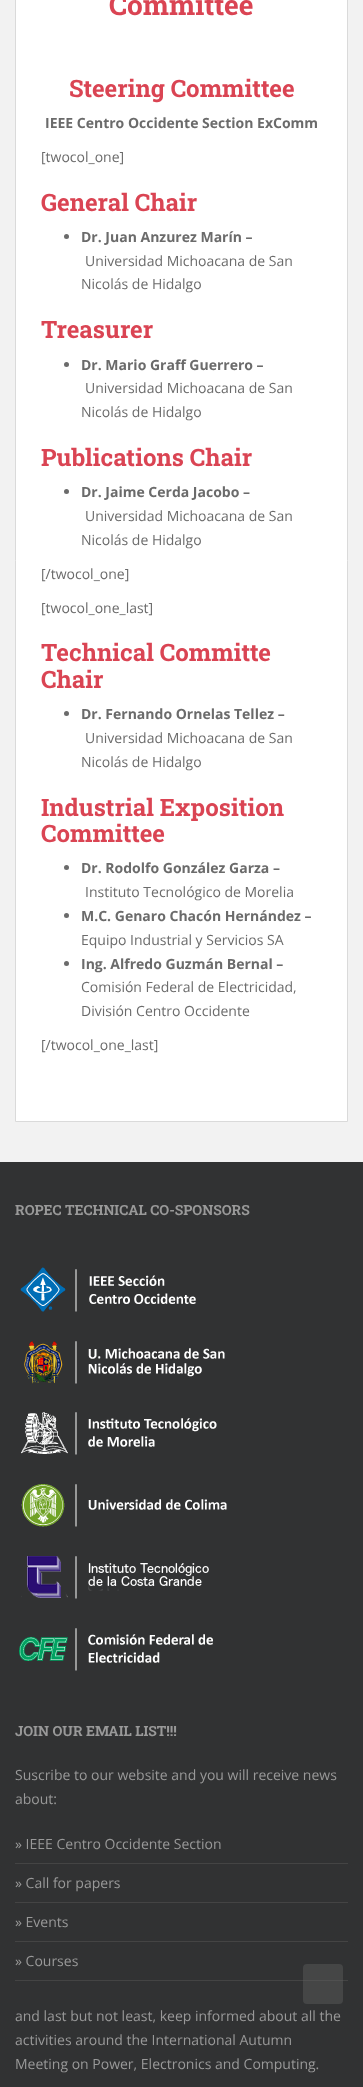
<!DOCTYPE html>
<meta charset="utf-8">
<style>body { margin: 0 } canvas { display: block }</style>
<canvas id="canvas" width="363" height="2087"></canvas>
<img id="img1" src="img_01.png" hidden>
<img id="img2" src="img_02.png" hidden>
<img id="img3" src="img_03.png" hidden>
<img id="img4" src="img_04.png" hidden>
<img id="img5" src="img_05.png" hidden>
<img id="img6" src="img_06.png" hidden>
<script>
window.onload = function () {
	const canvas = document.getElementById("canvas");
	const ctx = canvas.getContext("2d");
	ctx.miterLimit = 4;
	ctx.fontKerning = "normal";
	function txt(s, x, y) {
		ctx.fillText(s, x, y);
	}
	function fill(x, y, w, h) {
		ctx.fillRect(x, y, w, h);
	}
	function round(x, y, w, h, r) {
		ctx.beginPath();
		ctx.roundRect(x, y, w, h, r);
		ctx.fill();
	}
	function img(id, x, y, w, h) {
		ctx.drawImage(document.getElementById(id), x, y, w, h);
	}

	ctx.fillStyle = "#F2F2F2";
	fill(0, 0, 363, 2087);
	ctx.fillStyle = "#FFFFFF";
	ctx.beginPath();
	ctx.rect(15.5, -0.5, 332, 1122);
	ctx.fill();
	ctx.strokeStyle = "#DADADA";
	ctx.stroke();
	ctx.fillStyle = "#6B6B6B";
	ctx.beginPath();
	ctx.arc(66.5, 236.5, 2.5, 0, Math.PI * 2);
	ctx.fill();
	ctx.beginPath();
	ctx.arc(66.5, 364.5, 2.5, 0, Math.PI * 2);
	ctx.fill();
	ctx.beginPath();
	ctx.arc(66.5, 491.5, 2.5, 0, Math.PI * 2);
	ctx.fill();
	ctx.beginPath();
	ctx.arc(66.5, 713.5, 2.5, 0, Math.PI * 2);
	ctx.fill();
	ctx.beginPath();
	ctx.arc(66.5, 867.5, 2.5, 0, Math.PI * 2);
	ctx.fill();
	ctx.beginPath();
	ctx.arc(66.5, 915.5, 2.5, 0, Math.PI * 2);
	ctx.fill();
	ctx.beginPath();
	ctx.arc(66.5, 963.5, 2.5, 0, Math.PI * 2);
	ctx.fill();
	ctx.fillStyle = "#313233";
	fill(0, 1162, 363, 925);
	img("img1", 20, 1267, 176, 45);
	img("img2", 24, 1341, 201, 43);
	img("img3", 21, 1412, 196, 43);
	img("img4", 21, 1484, 206, 43);
	img("img5", 21, 1556, 188, 43);
	img("img6", 19, 1628, 194, 43);
	ctx.fillStyle = "#444444";
	fill(15, 1863, 333, 1);
	fill(15, 1902, 333, 1);
	fill(15, 1941, 333, 1);
	fill(15, 1980, 333, 1);
	ctx.fillStyle = "rgba(100, 100, 100, 0.4)";
	round(303, 1964, 40, 40, 4);
	ctx.font = "bold 28px Roboto Slab";
	ctx.fillStyle = "#DA4453";
	txt("Committee", 109, 15);
	ctx.font = "bold 24px Roboto Slab";
	txt("Steering Committee", 69, 97);
	ctx.font = "bold 14px Open Sans";
	ctx.fillStyle = "#6B6B6B";
	txt("IEEE Centro Occidente Section ExComm", 45, 128);
	ctx.font = "14px Open Sans";
	txt("[twocol_one]", 41, 162);
	ctx.font = "bold 24px Roboto Slab";
	ctx.fillStyle = "#DA4453";
	txt("General Chair", 41, 211);
	ctx.font = "bold 14px Open Sans";
	ctx.fillStyle = "#6B6B6B";
	txt("Dr. Juan Anzurez Marín –", 81, 242);
	ctx.font = "14px Open Sans";
	txt("Universidad Michoacana de San", 85, 266);
	txt("Nicolás de Hidalgo", 81, 289);
	ctx.font = "bold 24px Roboto Slab";
	ctx.fillStyle = "#DA4453";
	txt("Treasurer", 41, 338);
	ctx.font = "bold 14px Open Sans";
	ctx.fillStyle = "#6B6B6B";
	txt("Dr. Mario Graff Guerrero –", 81, 370);
	ctx.font = "14px Open Sans";
	txt("Universidad Michoacana de San", 85, 393);
	txt("Nicolás de Hidalgo", 81, 417);
	ctx.font = "bold 24px Roboto Slab";
	ctx.fillStyle = "#DA4453";
	txt("Publications Chair", 41, 466);
	ctx.font = "bold 14px Open Sans";
	ctx.fillStyle = "#6B6B6B";
	txt("Dr. Jaime Cerda Jacobo –", 81, 497);
	ctx.font = "14px Open Sans";
	txt("Universidad Michoacana de San", 85, 521);
	txt("Nicolás de Hidalgo", 81, 545);
	txt("[/twocol_one]", 41, 579);
	txt("[twocol_one_last]", 41, 613);
	ctx.font = "bold 24px Roboto Slab";
	ctx.fillStyle = "#DA4453";
	txt("Technical Committe", 41, 661);
	txt("Chair", 41, 688);
	ctx.font = "bold 14px Open Sans";
	ctx.fillStyle = "#6B6B6B";
	txt("Dr. Fernando Ornelas Tellez –", 81, 719);
	ctx.font = "14px Open Sans";
	txt("Universidad Michoacana de San", 85, 743);
	txt("Nicolás de Hidalgo", 81, 767);
	ctx.font = "bold 24px Roboto Slab";
	ctx.fillStyle = "#DA4453";
	txt("Industrial Exposition", 41, 816);
	txt("Committee", 41, 842);
	ctx.font = "bold 14px Open Sans";
	ctx.fillStyle = "#6B6B6B";
	txt("Dr. Rodolfo González Garza –", 81, 873);
	ctx.font = "14px Open Sans";
	txt("Instituto Tecnológico de Morelia", 85, 897);
	ctx.font = "bold 14px Open Sans";
	txt("M.C. Genaro Chacón Hernández –", 81, 921);
	ctx.font = "14px Open Sans";
	txt("Equipo Industrial y Servicios SA", 81, 945);
	ctx.font = "bold 14px Open Sans";
	txt("Ing. Alfredo Guzmán Bernal –", 81, 969);
	ctx.font = "14px Open Sans";
	txt("Comisión Federal de Electricidad,", 81, 992);
	txt("División Centro Occidente", 81, 1016);
	txt("[/twocol_one_last]", 41, 1050);
	ctx.font = "bold 14px Roboto Slab";
	ctx.fillStyle = "#999999";
	txt("ROPEC TECHNICAL CO-SPONSORS", 15, 1215);
	txt("JOIN OUR EMAIL LIST!!!", 15, 1736);
	ctx.font = "14px Open Sans";
	txt("Suscribe to our website and you will receive news", 15, 1780);
	txt("about:", 15, 1804);
	txt("» IEEE Centro Occidente Section", 15, 1849);
	txt("» Call for papers", 15, 1888);
	txt("» Events", 15, 1927);
	txt("» Courses", 15, 1966);
	txt("and last but not least, keep informed about all the", 15, 2021);
	txt("activities around the International Autumn", 15, 2045);
	txt("Meeting on Power, Electronics and Computing.", 15, 2069);
};
</script>
